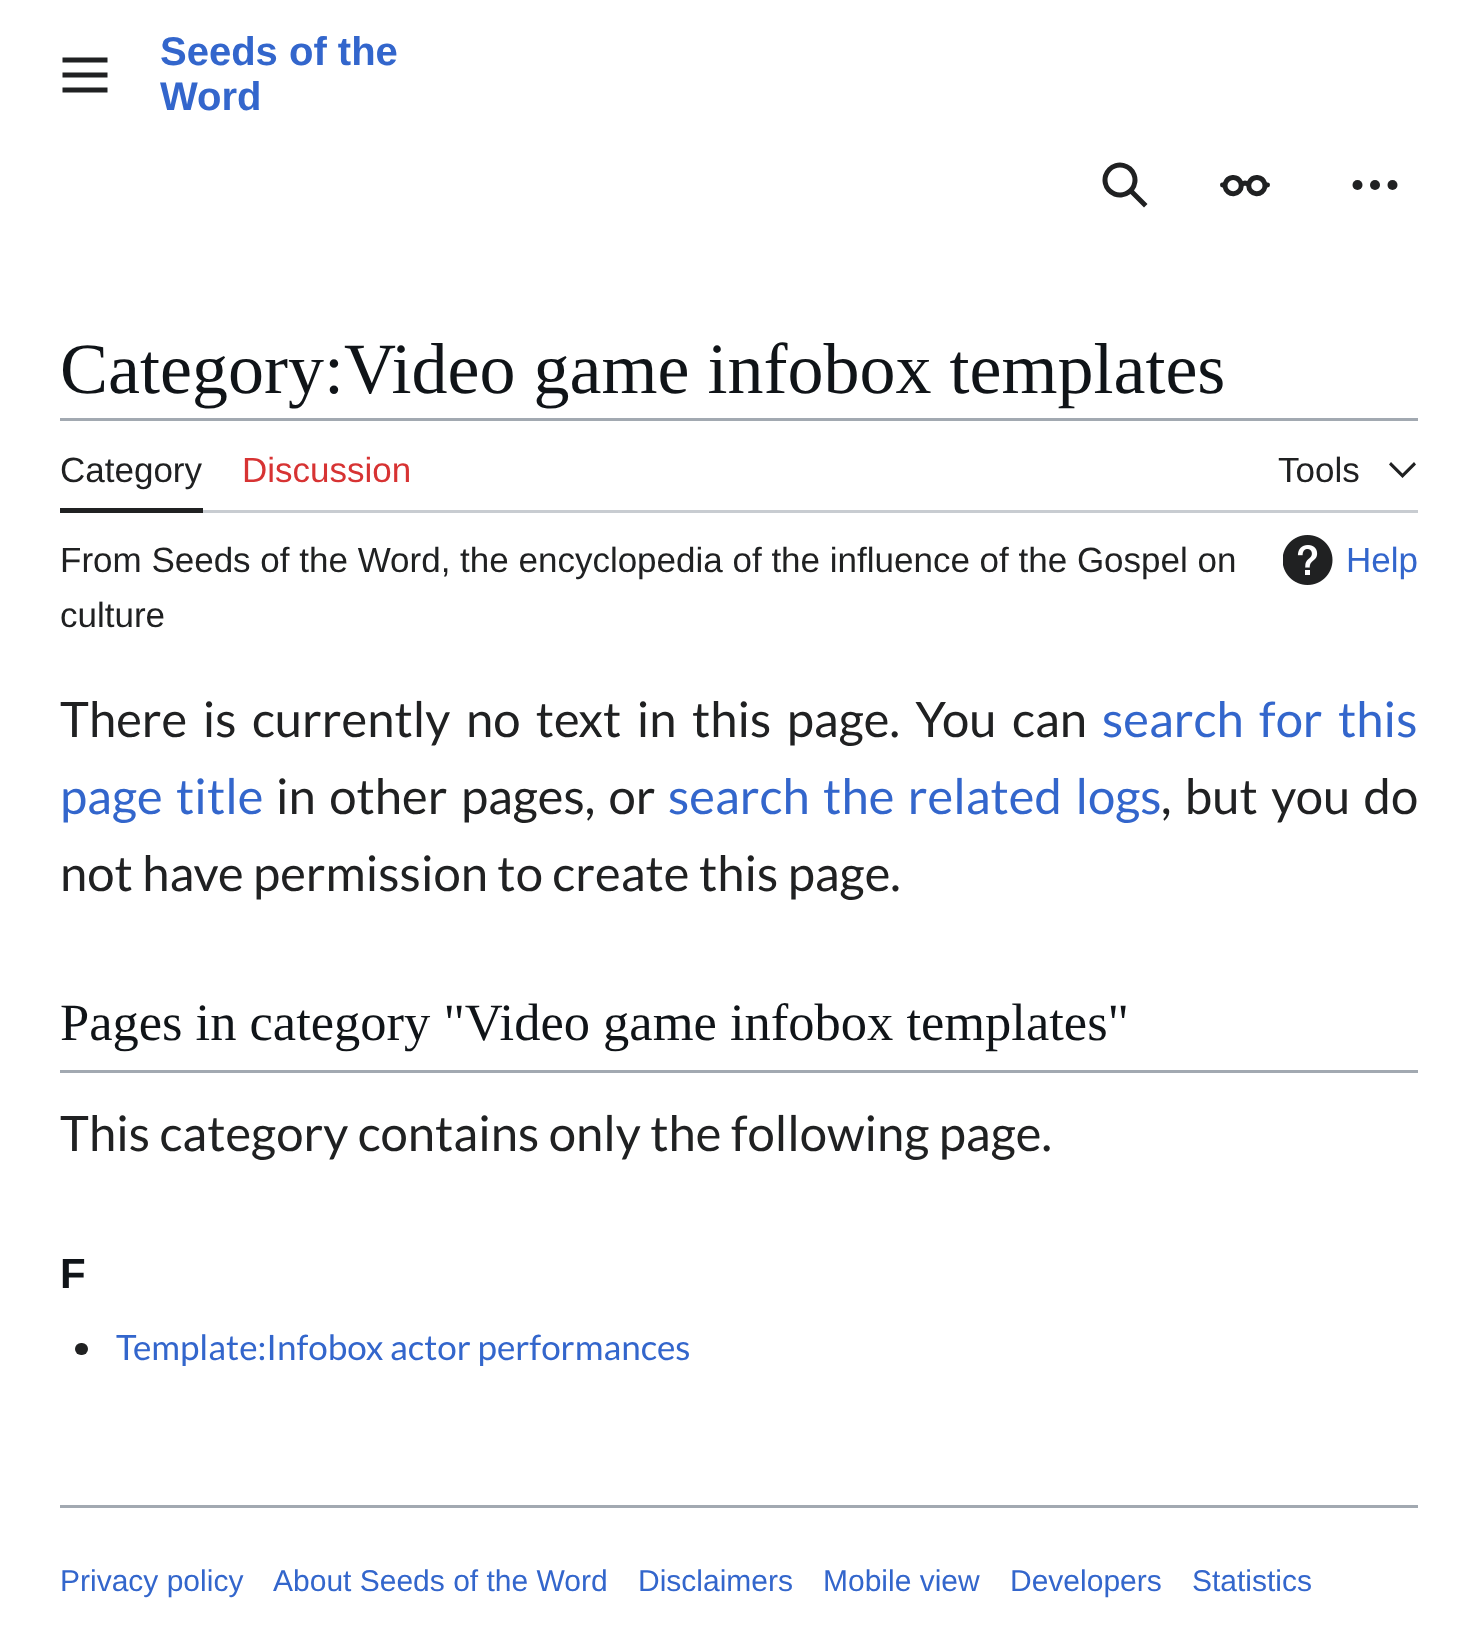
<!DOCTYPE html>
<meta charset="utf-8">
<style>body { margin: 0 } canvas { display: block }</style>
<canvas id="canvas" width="1476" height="1626"></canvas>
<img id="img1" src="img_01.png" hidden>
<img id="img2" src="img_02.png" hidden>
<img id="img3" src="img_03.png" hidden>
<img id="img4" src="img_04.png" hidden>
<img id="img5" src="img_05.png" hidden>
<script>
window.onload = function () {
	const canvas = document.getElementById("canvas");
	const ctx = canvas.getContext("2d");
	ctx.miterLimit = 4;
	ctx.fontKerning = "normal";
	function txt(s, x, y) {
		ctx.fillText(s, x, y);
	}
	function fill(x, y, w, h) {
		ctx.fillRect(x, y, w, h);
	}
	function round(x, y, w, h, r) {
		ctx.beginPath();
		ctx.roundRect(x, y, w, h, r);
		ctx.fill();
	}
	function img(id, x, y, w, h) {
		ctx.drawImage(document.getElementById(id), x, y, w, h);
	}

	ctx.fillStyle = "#FFFFFF";
	fill(0, 0, 1476, 1626);
	img("img1", 62, 57, 46, 36);
	img("img2", 1102, 162, 46, 46);
	img("img3", 1220, 175, 50, 22);
	img("img4", 1352, 180, 46, 10);
	ctx.fillStyle = "#A2A9B1";
	fill(60, 418, 1358, 3);
	ctx.fillStyle = "#C8CCD1";
	ctx.beginPath();
	ctx.moveTo(60, 510);
	ctx.lineTo(60, 513);
	ctx.lineTo(1418, 513);
	ctx.lineTo(1418, 423);
	ctx.lineTo(1418, 510);
	ctx.closePath();
	ctx.fill();
	ctx.fillStyle = "#202122";
	fill(60, 508, 143, 5);
	ctx.beginPath();
	ctx.moveTo(1414, 462);
	ctx.lineTo(1402.5, 473.5);
	ctx.lineTo(1391, 462);
	ctx.lineTo(1389, 464.5);
	ctx.lineTo(1402.5, 478);
	ctx.lineTo(1416, 464.5);
	ctx.closePath();
	ctx.fill();
	img("img5", 1283, 535, 50, 50);
	ctx.fillStyle = "#A2A9B1";
	fill(60, 1070, 1358, 3);
	ctx.fillStyle = "#202122";
	round(75, 1343, 13, 12, 6);
	ctx.fillStyle = "#A2A9B1";
	fill(60, 1505, 1358, 3);
	ctx.font = "bold 40px Liberation Sans";
	ctx.fillStyle = "#3366CC";
	txt("Seeds of the", 160, 65);
	txt("Word", 160, 110);
	ctx.font = "72px Liberation Serif";
	ctx.fillStyle = "#101418";
	txt("Category:Video game infobox templates", 60, 393);
	ctx.font = "35px Liberation Sans";
	ctx.fillStyle = "#202122";
	txt("Category", 60, 482);
	ctx.fillStyle = "#D73333";
	txt("Discussion", 242, 482);
	ctx.fillStyle = "#202122";
	txt("Tools", 1278, 482);
	txt("From Seeds of the Word, the encyclopedia of the influence of the Gospel on", 60, 572);
	txt("culture", 60, 627);
	ctx.fillStyle = "#3366CC";
	txt("Help", 1346, 572);
	ctx.wordSpacing = "6px";
	ctx.font = "49px Lato";
	ctx.fillStyle = "#202122";
	txt("There is currently no text in this page. You can", 60, 737);
	ctx.fillStyle = "#3366CC";
	txt("search for this", 1102, 737);
	ctx.wordSpacing = "4px";
	txt("page title", 60, 814);
	ctx.fillStyle = "#202122";
	txt("in other pages, or", 276, 814);
	ctx.fillStyle = "#3366CC";
	txt("search the related logs", 668, 814);
	ctx.fillStyle = "#202122";
	txt(", but you do", 1161, 814);
	ctx.wordSpacing = "0px";
	txt("not have permission to create this page.", 60, 891);
	ctx.font = "52.5px Liberation Serif";
	ctx.fillStyle = "#101418";
	txt("Pages in category \"Video game infobox templates\"", 60, 1040);
	ctx.font = "49px Lato";
	ctx.fillStyle = "#202122";
	txt("This category contains only the following page.", 60, 1151);
	ctx.font = "bold 42px Liberation Sans";
	ctx.fillStyle = "#101418";
	txt("F", 60, 1288);
	ctx.font = "35px Lato";
	ctx.fillStyle = "#3366CC";
	txt("Template:Infobox actor performances", 116, 1360);
	ctx.font = "30px Liberation Sans";
	txt("Privacy policy", 60, 1591);
	txt("About Seeds of the Word", 273, 1591);
	txt("Disclaimers", 638, 1591);
	txt("Mobile view", 823, 1591);
	txt("Developers", 1010, 1591);
	txt("Statistics", 1192, 1591);
};
</script>
